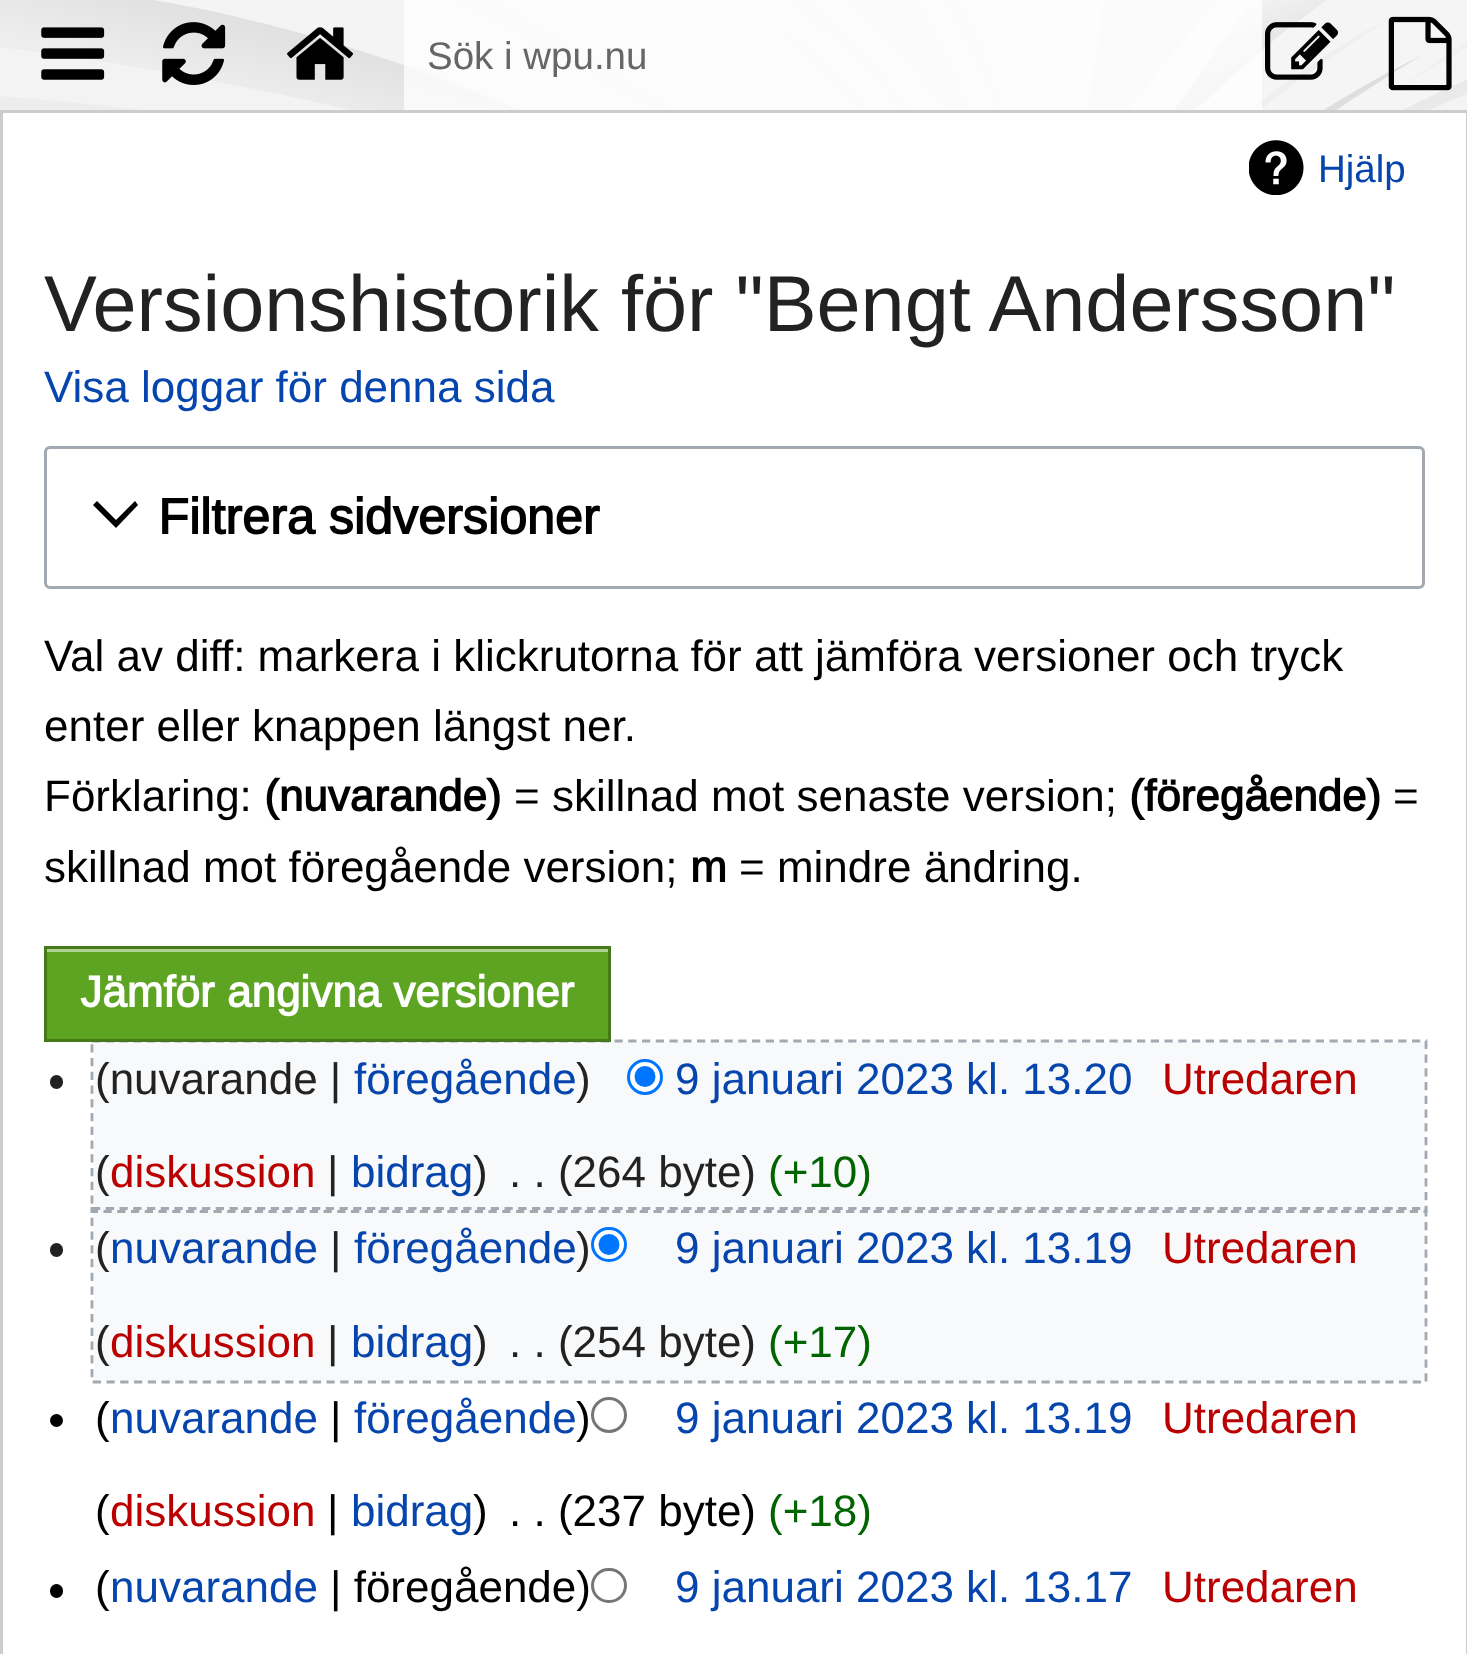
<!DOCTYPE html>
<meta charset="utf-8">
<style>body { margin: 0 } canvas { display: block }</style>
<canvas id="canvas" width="1467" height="1654"></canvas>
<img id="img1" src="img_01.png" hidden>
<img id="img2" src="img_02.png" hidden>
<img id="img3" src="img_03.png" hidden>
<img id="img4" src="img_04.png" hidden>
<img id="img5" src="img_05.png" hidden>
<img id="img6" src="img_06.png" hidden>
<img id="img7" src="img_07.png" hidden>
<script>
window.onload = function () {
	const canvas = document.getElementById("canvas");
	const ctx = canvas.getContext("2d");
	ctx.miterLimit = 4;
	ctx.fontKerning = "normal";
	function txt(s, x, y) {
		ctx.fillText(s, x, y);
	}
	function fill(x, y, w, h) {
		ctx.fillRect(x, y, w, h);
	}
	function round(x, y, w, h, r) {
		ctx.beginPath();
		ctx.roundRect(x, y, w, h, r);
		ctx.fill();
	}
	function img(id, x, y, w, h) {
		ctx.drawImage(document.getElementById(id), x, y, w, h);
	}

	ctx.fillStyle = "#FFFFFF";
	fill(0, 0, 1467, 1654);
	img("img1", 0, 0, 1467, 110);
	img("img2", 41, 27, 64, 53);
	img("img3", 162, 22, 64, 63);
	img("img4", 287, 27, 66, 53);
	ctx.fillStyle = "rgba(255, 255, 255, 0.75)";
	fill(404, 0, 858, 110);
	img("img5", 1265, 22, 73, 58);
	img("img6", 1388, 16, 64, 75);
	ctx.strokeStyle = "#CCCCCC";
	ctx.lineWidth = 3;
	ctx.strokeRect(1.5, 111.5, 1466, 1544);
	img("img7", 1249, 140, 55, 55);
	ctx.beginPath();
	ctx.roundRect(45.5, 447.5, 1378, 140, 4.5);
	ctx.strokeStyle = "#A2A9B1";
	ctx.stroke();
	ctx.fillStyle = "#000000";
	ctx.beginPath();
	ctx.moveTo(135, 501);
	ctx.lineTo(116, 520);
	ctx.lineTo(97, 501);
	ctx.lineTo(93, 505);
	ctx.lineTo(116, 528);
	ctx.lineTo(138, 505);
	ctx.closePath();
	ctx.fill();
	ctx.fillStyle = "#5DA423";
	fill(47, 952, 561, 87);
	ctx.fillStyle = "#AED291";
	fill(47, 949, 561, 3);
	ctx.fillStyle = "#F8F9FA";
	fill(94, 1042, 1331, 339);
	ctx.fillStyle = "#FFFFFF";
	ctx.beginPath();
	ctx.arc(645, 1077, 16.5, 0, Math.PI * 2);
	ctx.fill();
	ctx.strokeStyle = "#0075FF";
	ctx.stroke();
	ctx.fillStyle = "#0075FF";
	ctx.beginPath();
	ctx.arc(645, 1076.5, 10.5, 0, Math.PI * 2);
	ctx.fill();
	ctx.fillStyle = "#202122";
	round(50, 1075, 13, 14, 6.5);
	ctx.fillStyle = "#FFFFFF";
	ctx.beginPath();
	ctx.roundRect(592.5, 1228.5, 33, 32, 16);
	ctx.fill();
	ctx.stroke();
	ctx.fillStyle = "#0075FF";
	ctx.beginPath();
	ctx.arc(609, 1244.5, 10.5, 0, Math.PI * 2);
	ctx.fill();
	ctx.fillStyle = "#202122";
	round(50, 1243, 13, 14, 6.5);
	ctx.beginPath();
	ctx.arc(609, 1415, 16.5, 0, Math.PI * 2);
	ctx.strokeStyle = "#767676";
	ctx.stroke();
	ctx.fillStyle = "#000000";
	ctx.beginPath();
	ctx.arc(56.5, 1420.5, 6.5, 0, Math.PI * 2);
	ctx.fill();
	round(50, 1584, 13, 14, 6.5);
	ctx.beginPath();
	ctx.roundRect(592.5, 1569.5, 33, 32, 16);
	ctx.stroke();
	ctx.font = "38.5px Arimo";
	ctx.fillStyle = "#666666";
	txt("Sök i wpu.nu", 427, 69);
	ctx.font = "38.5px Liberation Sans";
	ctx.fillStyle = "#0645AD";
	txt("Hjälp", 1318, 182);
	ctx.font = "79.25px Liberation Sans";
	ctx.fillStyle = "#222222";
	txt("Versionshistorik för \"Bengt Andersson\"", 44, 331);
	ctx.font = "44px Arimo";
	ctx.fillStyle = "#0645AD";
	txt("Visa loggar för denna sida", 44, 402);
	ctx.font = "bold 50.25px Arimo";
	ctx.fillStyle = "#000000";
	txt("Filtrera sidversioner", 158, 534);
	ctx.font = "44px Arimo";
	txt("Val av diff: markera i klickrutorna för att jämföra versioner och tryck", 44, 671);
	txt("enter eller knappen längst ner.", 44, 741);
	txt("Förklaring:", 44, 811);
	ctx.font = "bold 44px Arimo";
	txt("(nuvarande)", 264, 811);
	ctx.font = "44px Arimo";
	txt("= skillnad mot senaste version;", 514, 811);
	ctx.font = "bold 44px Arimo";
	txt("(föregående)", 1129, 811);
	ctx.font = "44px Arimo";
	txt("=", 1393, 811);
	txt("skillnad mot föregående version;", 44, 882);
	ctx.font = "bold 44px Arimo";
	txt("m", 690, 882);
	ctx.font = "44px Arimo";
	txt("= mindre ändring.", 739, 882);
	ctx.fillStyle = "#222222";
	txt("(nuvarande |", 95, 1094);
	ctx.fillStyle = "#0645AD";
	txt("föregående", 354, 1094);
	ctx.fillStyle = "#222222";
	txt(")", 576, 1094);
	ctx.fillStyle = "#BA0000";
	txt("Utredaren", 1162, 1094);
	ctx.fillStyle = "#222222";
	txt("(", 95, 1187);
	ctx.fillStyle = "#BA0000";
	txt("diskussion", 110, 1187);
	ctx.fillStyle = "#222222";
	txt("|", 327, 1187);
	ctx.fillStyle = "#0645AD";
	txt("bidrag", 351, 1187);
	ctx.fillStyle = "#222222";
	txt(")", 473, 1187);
	ctx.fillStyle = "#0645AD";
	txt("9 januari 2023 kl. 13.20", 675, 1094);
	ctx.fillStyle = "#222222";
	txt(". . (264 byte)", 509, 1187);
	ctx.fillStyle = "#006400";
	txt("(+10)", 768, 1187);
	ctx.beginPath();
	ctx.moveTo(92, 1041);
	ctx.lineTo(1426, 1041);
	ctx.lineTo(1426, 1211.5);
	ctx.lineTo(92, 1211.5);
	ctx.closePath();
	ctx.strokeStyle = "#A2A9B1";
	ctx.lineWidth = 2.8;
	ctx.setLineDash([8.25, 5.5]);
	ctx.stroke();
	ctx.strokeStyle = "#457A1A";
	ctx.lineWidth = 3;
	ctx.setLineDash([]);
	ctx.strokeRect(45.5, 947.5, 564, 93);
	ctx.font = "bold 44px Arimo";
	ctx.fillStyle = "#FFFFFF";
	txt("Jämför angivna versioner", 80, 1007);
	ctx.font = "44px Arimo";
	ctx.fillStyle = "#222222";
	txt("(", 95, 1263);
	ctx.fillStyle = "#0645AD";
	txt("nuvarande", 110, 1263);
	ctx.fillStyle = "#222222";
	txt("|", 330, 1263);
	ctx.fillStyle = "#0645AD";
	txt("föregående", 354, 1263);
	ctx.fillStyle = "#222222";
	txt(")", 576, 1263);
	ctx.fillStyle = "#BA0000";
	txt("Utredaren", 1162, 1263);
	ctx.fillStyle = "#222222";
	txt("(", 95, 1357);
	ctx.fillStyle = "#BA0000";
	txt("diskussion", 110, 1357);
	ctx.fillStyle = "#222222";
	txt("|", 327, 1357);
	ctx.fillStyle = "#0645AD";
	txt("bidrag", 351, 1357);
	ctx.fillStyle = "#222222";
	txt(")", 473, 1357);
	ctx.fillStyle = "#0645AD";
	txt("9 januari 2023 kl. 13.19", 675, 1263);
	ctx.fillStyle = "#222222";
	txt(". . (254 byte)", 509, 1357);
	ctx.fillStyle = "#006400";
	txt("(+17)", 768, 1357);
	ctx.beginPath();
	ctx.moveTo(92, 1208.5);
	ctx.lineTo(1426, 1208.5);
	ctx.lineTo(1426, 1382);
	ctx.lineTo(92, 1382);
	ctx.closePath();
	ctx.strokeStyle = "#A2A9B1";
	ctx.lineWidth = 2.8;
	ctx.setLineDash([8.25, 5.5]);
	ctx.stroke();
	ctx.fillStyle = "#000000";
	txt("(", 95, 1433);
	ctx.fillStyle = "#0645AD";
	txt("nuvarande", 110, 1433);
	ctx.fillStyle = "#000000";
	txt("|", 330, 1433);
	ctx.fillStyle = "#0645AD";
	txt("föregående", 354, 1433);
	ctx.fillStyle = "#000000";
	txt(")", 576, 1433);
	ctx.fillStyle = "#BA0000";
	txt("Utredaren", 1162, 1433);
	ctx.fillStyle = "#000000";
	txt("(", 95, 1526);
	ctx.fillStyle = "#BA0000";
	txt("diskussion", 110, 1526);
	ctx.fillStyle = "#000000";
	txt("|", 327, 1526);
	ctx.fillStyle = "#0645AD";
	txt("bidrag", 351, 1526);
	ctx.fillStyle = "#000000";
	txt(")", 473, 1526);
	ctx.fillStyle = "#0645AD";
	txt("9 januari 2023 kl. 13.19", 675, 1433);
	ctx.fillStyle = "#000000";
	txt(". . (237 byte)", 509, 1526);
	ctx.fillStyle = "#006400";
	txt("(+18)", 768, 1526);
	ctx.fillStyle = "#000000";
	txt("(", 95, 1602);
	ctx.fillStyle = "#0645AD";
	txt("nuvarande", 110, 1602);
	ctx.fillStyle = "#000000";
	txt("| föregående)", 330, 1602);
	ctx.fillStyle = "#0645AD";
	txt("9 januari 2023 kl. 13.17", 675, 1602);
	ctx.fillStyle = "#BA0000";
	txt("Utredaren", 1162, 1602);
};
</script>
